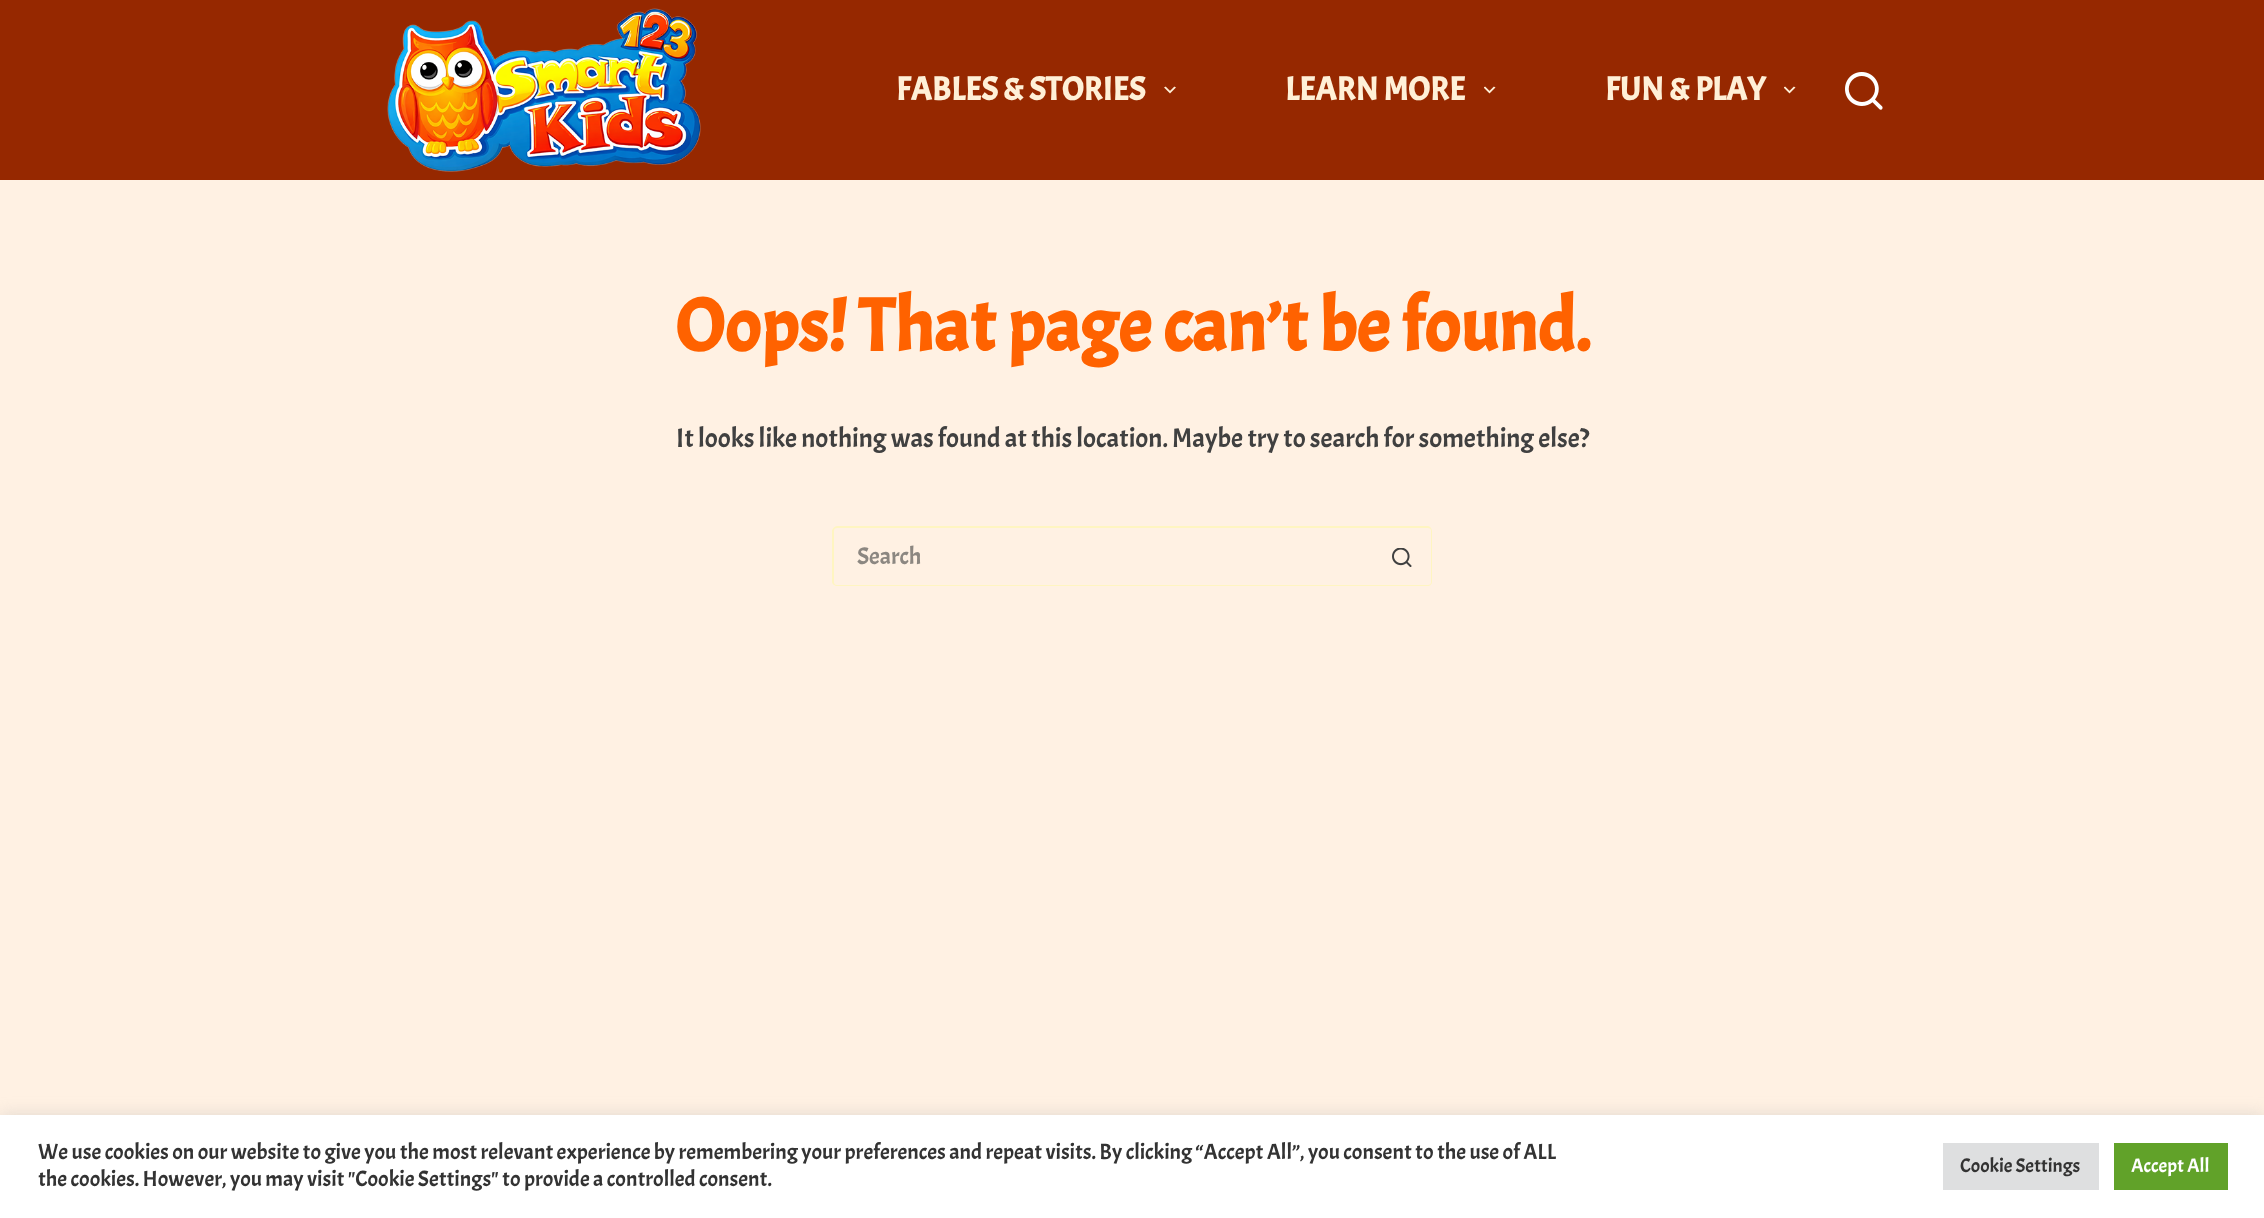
<!DOCTYPE html>
<meta charset="utf-8">
<style>body { margin: 0 } canvas { display: block }</style>
<canvas id="canvas" width="2264" height="1218"></canvas>
<img id="img1" src="img_01.png" hidden>
<img id="img2" src="img_02.png" hidden>
<img id="img3" src="img_03.png" hidden>
<img id="img4" src="img_04.png" hidden>
<img id="img5" src="img_05.png" hidden>
<script>
window.onload = function () {
	const canvas = document.getElementById("canvas");
	const ctx = canvas.getContext("2d");
	ctx.miterLimit = 4;
	ctx.fontKerning = "normal";
	function txt(s, x, y) {
		ctx.fillText(s, x, y);
	}
	function fill(x, y, w, h) {
		ctx.fillRect(x, y, w, h);
	}
	function img(id, x, y, w, h) {
		ctx.drawImage(document.getElementById(id), x, y, w, h);
	}

	ctx.fillStyle = "#FFF1E3";
	fill(0, 0, 2264, 1218);
	ctx.fillStyle = "#962800";
	fill(0, 0, 2264, 180);
	img("img1", 387, 8, 314, 164);
	img("img2", 1164, 86, 12, 8);
	img("img3", 1484, 86, 12, 8);
	img("img3", 1784, 86, 12, 8);
	img("img4", 1845, 72, 38, 38);
	ctx.fillStyle = "#FFF5C1";
	ctx.beginPath();
	ctx.moveTo(837, 526);
	ctx.lineTo(1372, 526);
	ctx.lineTo(1372, 586);
	ctx.lineTo(837, 586);
	ctx.bezierCurveTo(835, 586, 832, 584, 832, 582);
	ctx.lineTo(832, 531);
	ctx.bezierCurveTo(832, 529, 835, 526, 837, 526);
	ctx.closePath();
	ctx.moveTo(837, 528);
	ctx.lineTo(1372, 528);
	ctx.lineTo(1372, 585);
	ctx.lineTo(837, 585);
	ctx.bezierCurveTo(835, 585, 834, 584, 834, 582);
	ctx.lineTo(834, 531);
	ctx.bezierCurveTo(834, 529, 835, 528, 837, 528);
	ctx.closePath();
	ctx.fill("evenodd");
	ctx.beginPath();
	ctx.moveTo(1372, 526);
	ctx.lineTo(1428, 526);
	ctx.bezierCurveTo(1430, 526, 1432, 529, 1432, 531);
	ctx.lineTo(1432, 582);
	ctx.bezierCurveTo(1432, 584, 1430, 586, 1428, 586);
	ctx.lineTo(1372, 586);
	ctx.closePath();
	ctx.moveTo(1372, 528);
	ctx.lineTo(1428, 528);
	ctx.bezierCurveTo(1430, 528, 1431, 529, 1431, 531);
	ctx.lineTo(1431, 582);
	ctx.bezierCurveTo(1431, 584, 1430, 585, 1428, 585);
	ctx.lineTo(1372, 585);
	ctx.closePath();
	ctx.fill("evenodd");
	img("img5", 1392, 548, 20, 19);
	ctx.fillStyle = "rgba(172, 171, 171, 0.3)";
	ctx.filter = "blur(7.5px)";
	ctx.beginPath();
	ctx.rect(0, 1113, 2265, 104);
	ctx.fill();
	ctx.filter = "none";
	ctx.fillStyle = "#FFFFFF";
	fill(0, 1115, 2264, 103);
	ctx.fillStyle = "#DEDFE0";
	fill(1943, 1143, 156, 47);
	ctx.fillStyle = "#61A229";
	fill(2114, 1143, 114, 47);
	ctx.font = "bold 33px Acme";
	ctx.fillStyle = "#FFF0D7";
	txt("FABLES & STORIES", 896, 100);
	txt("LEARN MORE", 1285, 100);
	txt("FUN & PLAY", 1605, 100);
	ctx.font = "bold 75px Acme";
	ctx.fillStyle = "#FF6200";
	txt("Oops! That page can’t be found.", 675, 351);
	ctx.font = "27px Acme";
	ctx.fillStyle = "#404040";
	txt("It looks like nothing was found at this location. Maybe try to search for something else?", 676, 447);
	ctx.font = "24px Acme";
	ctx.fillStyle = "#8C8781";
	txt("Search", 857, 564);
	ctx.font = "22px Acme";
	ctx.fillStyle = "#333333";
	txt("We use cookies on our website to give you the most relevant experience by remembering your preferences and repeat visits. By clicking “Accept All”, you consent to the use of ALL", 38, 1159);
	txt("the cookies. However, you may visit \"Cookie Settings\" to provide a controlled consent.", 38, 1186);
	ctx.font = "19.5px Acme";
	txt("Cookie Settings", 1960, 1172);
	ctx.fillStyle = "#FFFFFF";
	txt("Accept All", 2131, 1172);
};
</script>
